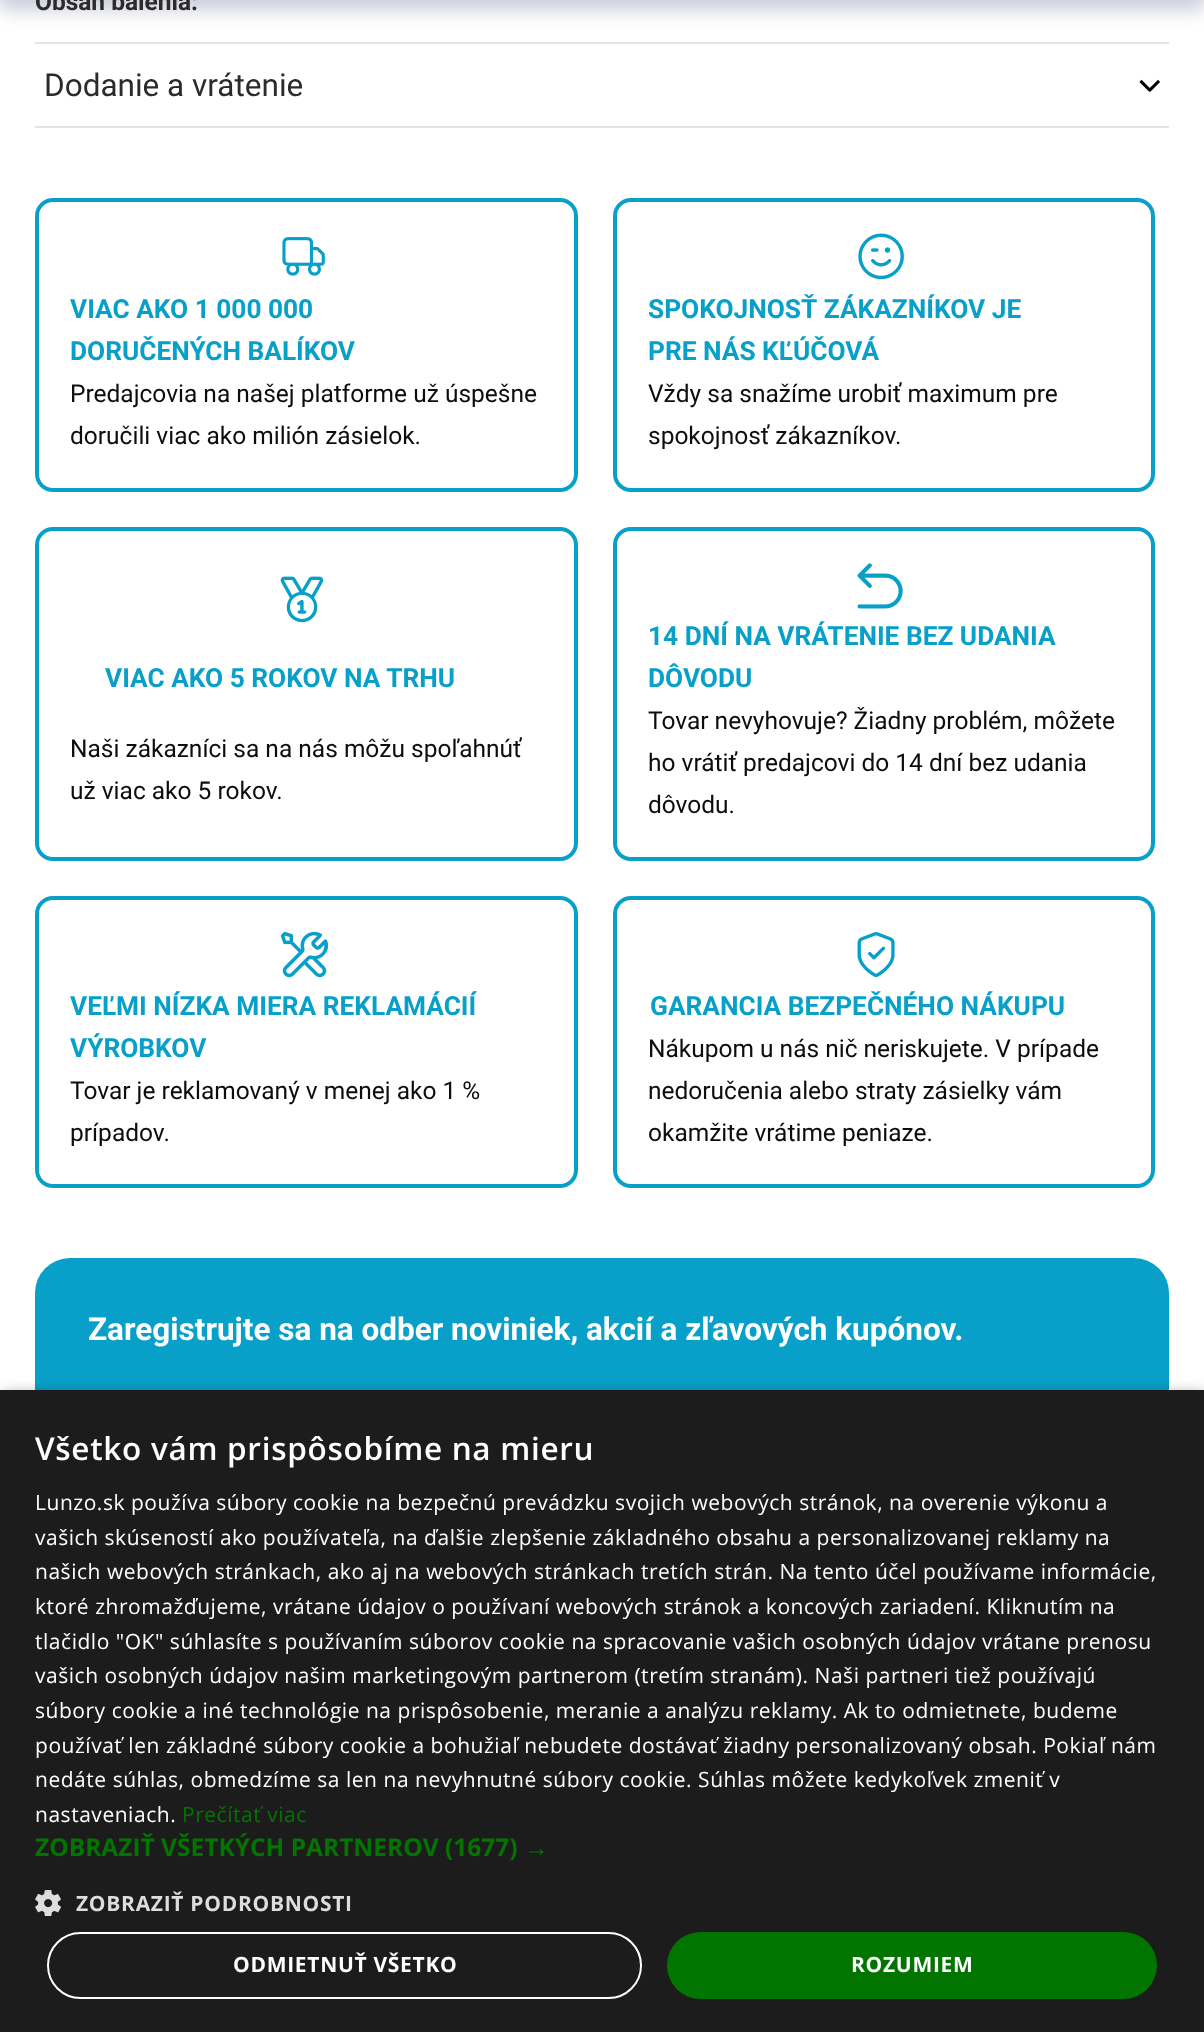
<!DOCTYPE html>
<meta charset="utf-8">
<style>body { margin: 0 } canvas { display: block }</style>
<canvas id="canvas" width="1204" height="2032"></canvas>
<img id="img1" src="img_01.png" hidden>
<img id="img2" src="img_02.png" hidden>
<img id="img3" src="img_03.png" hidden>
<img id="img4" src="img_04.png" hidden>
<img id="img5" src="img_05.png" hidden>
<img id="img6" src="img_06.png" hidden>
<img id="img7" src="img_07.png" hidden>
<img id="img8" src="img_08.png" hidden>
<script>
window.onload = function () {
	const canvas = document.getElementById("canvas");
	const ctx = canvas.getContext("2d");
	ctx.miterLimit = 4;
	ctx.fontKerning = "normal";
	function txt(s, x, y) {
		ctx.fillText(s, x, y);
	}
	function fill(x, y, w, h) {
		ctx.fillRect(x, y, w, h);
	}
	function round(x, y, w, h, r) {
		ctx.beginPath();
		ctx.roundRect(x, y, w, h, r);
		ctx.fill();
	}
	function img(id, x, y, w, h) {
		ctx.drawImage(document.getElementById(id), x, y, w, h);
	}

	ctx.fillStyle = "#FFFFFF";
	fill(0, 0, 1204, 2032);
	ctx.fillStyle = "rgba(164, 167, 193, 0.34)";
	ctx.filter = "blur(9px)";
	ctx.beginPath();
	ctx.rect(0, -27, 1204, 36);
	ctx.fill();
	ctx.filter = "none";
	ctx.filter = "blur(9px)";
	ctx.beginPath();
	ctx.rect(0, -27, 1204, 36);
	ctx.fill();
	ctx.filter = "none";
	ctx.fillStyle = "#E4E4E4";
	fill(35, 42, 1134, 2);
	fill(35, 126, 1134, 2);
	img("img1", 1139, 79, 21, 13);
	ctx.beginPath();
	ctx.roundRect(37, 200, 539, 290, 16);
	ctx.strokeStyle = "#08A0C8";
	ctx.lineWidth = 4;
	ctx.stroke();
	img("img2", 282, 237, 43, 39);
	ctx.beginPath();
	ctx.roundRect(615, 200, 538, 290, 16);
	ctx.stroke();
	img("img3", 858, 233, 46, 47);
	ctx.beginPath();
	ctx.roundRect(37, 529, 539, 330, 16);
	ctx.stroke();
	img("img4", 280, 576, 44, 47);
	ctx.beginPath();
	ctx.roundRect(615, 529, 538, 330, 16);
	ctx.stroke();
	img("img5", 857, 563, 46, 46);
	ctx.beginPath();
	ctx.roundRect(37, 898, 539, 288, 16);
	ctx.stroke();
	img("img6", 280, 931, 49, 47);
	ctx.beginPath();
	ctx.roundRect(615, 898, 538, 288, 16);
	ctx.stroke();
	img("img7", 857, 932, 38, 46);
	ctx.fillStyle = "#08A0C8";
	ctx.beginPath();
	ctx.roundRect(35, 1258, 1134, 368, [35, 35, 0, 0]);
	ctx.fill();
	ctx.fillStyle = "rgba(0, 0, 0, 0.35)";
	ctx.filter = "blur(7px)";
	ctx.beginPath();
	ctx.rect(2, 1393, 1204, 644);
	ctx.fill();
	ctx.filter = "none";
	ctx.fillStyle = "#1C1C1C";
	fill(0, 1390, 1204, 642);
	img("img8", 35, 1890, 26, 26);
	ctx.beginPath();
	ctx.roundRect(48, 1933, 593, 65, 32.5);
	ctx.strokeStyle = "#FFFFFF";
	ctx.lineWidth = 2;
	ctx.stroke();
	ctx.fillStyle = "#027500";
	round(667, 1932, 490, 67, 33.5);
	ctx.font = "bold 24.5px Roboto";
	ctx.fillStyle = "#2B2B2B";
	txt("Obsah balenia:", 35, 10);
	ctx.font = "31.5px Roboto";
	txt("Dodanie a vrátenie", 44, 96);
	ctx.font = "bold 26.25px Roboto";
	ctx.fillStyle = "#08A0C8";
	txt("VIAC AKO 1 000 000", 70, 318);
	txt("DORUČENÝCH BALÍKOV", 70, 360);
	ctx.font = "24.5px Roboto";
	ctx.fillStyle = "#0D0D0D";
	txt("Predajcovia na našej platforme už úspešne", 70, 402);
	txt("doručili viac ako milión zásielok.", 70, 444);
	ctx.font = "bold 26.25px Roboto";
	ctx.fillStyle = "#08A0C8";
	txt("SPOKOJNOSŤ ZÁKAZNÍKOV JE", 648, 318);
	txt("PRE NÁS KĽÚČOVÁ", 648, 360);
	ctx.font = "24.5px Roboto";
	ctx.fillStyle = "#0D0D0D";
	txt("Vždy sa snažíme urobiť maximum pre", 648, 402);
	txt("spokojnosť zákazníkov.", 648, 444);
	ctx.font = "bold 26.25px Roboto";
	ctx.fillStyle = "#08A0C8";
	txt("VIAC AKO 5 ROKOV NA TRHU", 105, 687);
	ctx.font = "24.5px Roboto";
	ctx.fillStyle = "#0D0D0D";
	txt("Naši zákazníci sa na nás môžu spoľahnúť", 70, 757);
	txt("už viac ako 5 rokov.", 70, 799);
	ctx.font = "bold 26.25px Roboto";
	ctx.fillStyle = "#08A0C8";
	txt("14 DNÍ NA VRÁTENIE BEZ UDANIA", 648, 645);
	txt("DÔVODU", 648, 687);
	ctx.font = "24.5px Roboto";
	ctx.fillStyle = "#0D0D0D";
	txt("Tovar nevyhovuje? Žiadny problém, môžete", 648, 729);
	txt("ho vrátiť predajcovi do 14 dní bez udania", 648, 771);
	txt("dôvodu.", 648, 813);
	ctx.font = "bold 26.25px Roboto";
	ctx.fillStyle = "#08A0C8";
	txt("VEĽMI NÍZKA MIERA REKLAMÁCIÍ", 70, 1015);
	txt("VÝROBKOV", 70, 1057);
	ctx.font = "24.5px Roboto";
	ctx.fillStyle = "#0D0D0D";
	txt("Tovar je reklamovaný v menej ako 1 %", 70, 1099);
	txt("prípadov.", 70, 1141);
	ctx.font = "bold 26.25px Roboto";
	ctx.fillStyle = "#08A0C8";
	txt("GARANCIA BEZPEČNÉHO NÁKUPU", 650, 1015);
	ctx.font = "24.5px Roboto";
	ctx.fillStyle = "#0D0D0D";
	txt("Nákupom u nás nič neriskujete. V prípade", 648, 1057);
	txt("nedoručenia alebo straty zásielky vám", 648, 1099);
	txt("okamžite vrátime peniaze.", 648, 1141);
	ctx.font = "bold 31.5px Roboto";
	ctx.fillStyle = "#FEFEFE";
	txt("Zaregistrujte sa na odber noviniek, akcií a zľavových kupónov.", 88, 1340);
	ctx.letterSpacing = "0.7px";
	ctx.font = "600 31.5px Open Sans";
	txt("Všetko vám prispôsobíme na mieru", 35, 1460);
	ctx.letterSpacing = "0.53px";
	ctx.font = "21px Open Sans";
	txt("Lunzo.sk používa súbory cookie na bezpečnú prevádzku svojich webových stránok, na overenie výkonu a", 35, 1510);
	txt("vašich skúseností ako používateľa, na ďalšie zlepšenie základného obsahu a personalizovanej reklamy na", 35, 1545);
	txt("našich webových stránkach, ako aj na webových stránkach tretích strán. Na tento účel používame informácie,", 35, 1579);
	txt("ktoré zhromažďujeme, vrátane údajov o používaní webových stránok a koncových zariadení. Kliknutím na", 35, 1614);
	txt("tlačidlo \"OK\" súhlasíte s používaním súborov cookie na spracovanie vašich osobných údajov vrátane prenosu", 35, 1649);
	txt("vašich osobných údajov našim marketingovým partnerom (tretím stranám). Naši partneri tiež používajú", 35, 1683);
	txt("súbory cookie a iné technológie na prispôsobenie, meranie a analýzu reklamy. Ak to odmietnete, budeme", 35, 1718);
	txt("používať len základné súbory cookie a bohužiaľ nebudete dostávať žiadny personalizovaný obsah. Pokiaľ nám", 35, 1753);
	txt("nedáte súhlas, obmedzíme sa len na nevyhnutné súbory cookie. Súhlas môžete kedykoľvek zmeniť v", 35, 1787);
	txt("nastaveniach.", 35, 1822);
	ctx.fillStyle = "#027500";
	txt("Prečítať viac", 182, 1822);
	ctx.letterSpacing = "0px";
	ctx.font = "bold 24.5px Open Sans";
	txt("ZOBRAZIŤ VŠETKÝCH PARTNEROV (1677)", 35, 1856);
	ctx.font = "bold 24.5px Liberation Sans";
	txt("→", 524, 1856);
	ctx.letterSpacing = "0.7px";
	ctx.font = "bold 21px Open Sans";
	ctx.fillStyle = "#DDDDDD";
	txt("ZOBRAZIŤ PODROBNOSTI", 76, 1911);
	ctx.fillStyle = "#FEFEFE";
	txt("ODMIETNUŤ VŠETKO", 233, 1972);
	txt("ROZUMIEM", 851, 1972);
};
</script>
